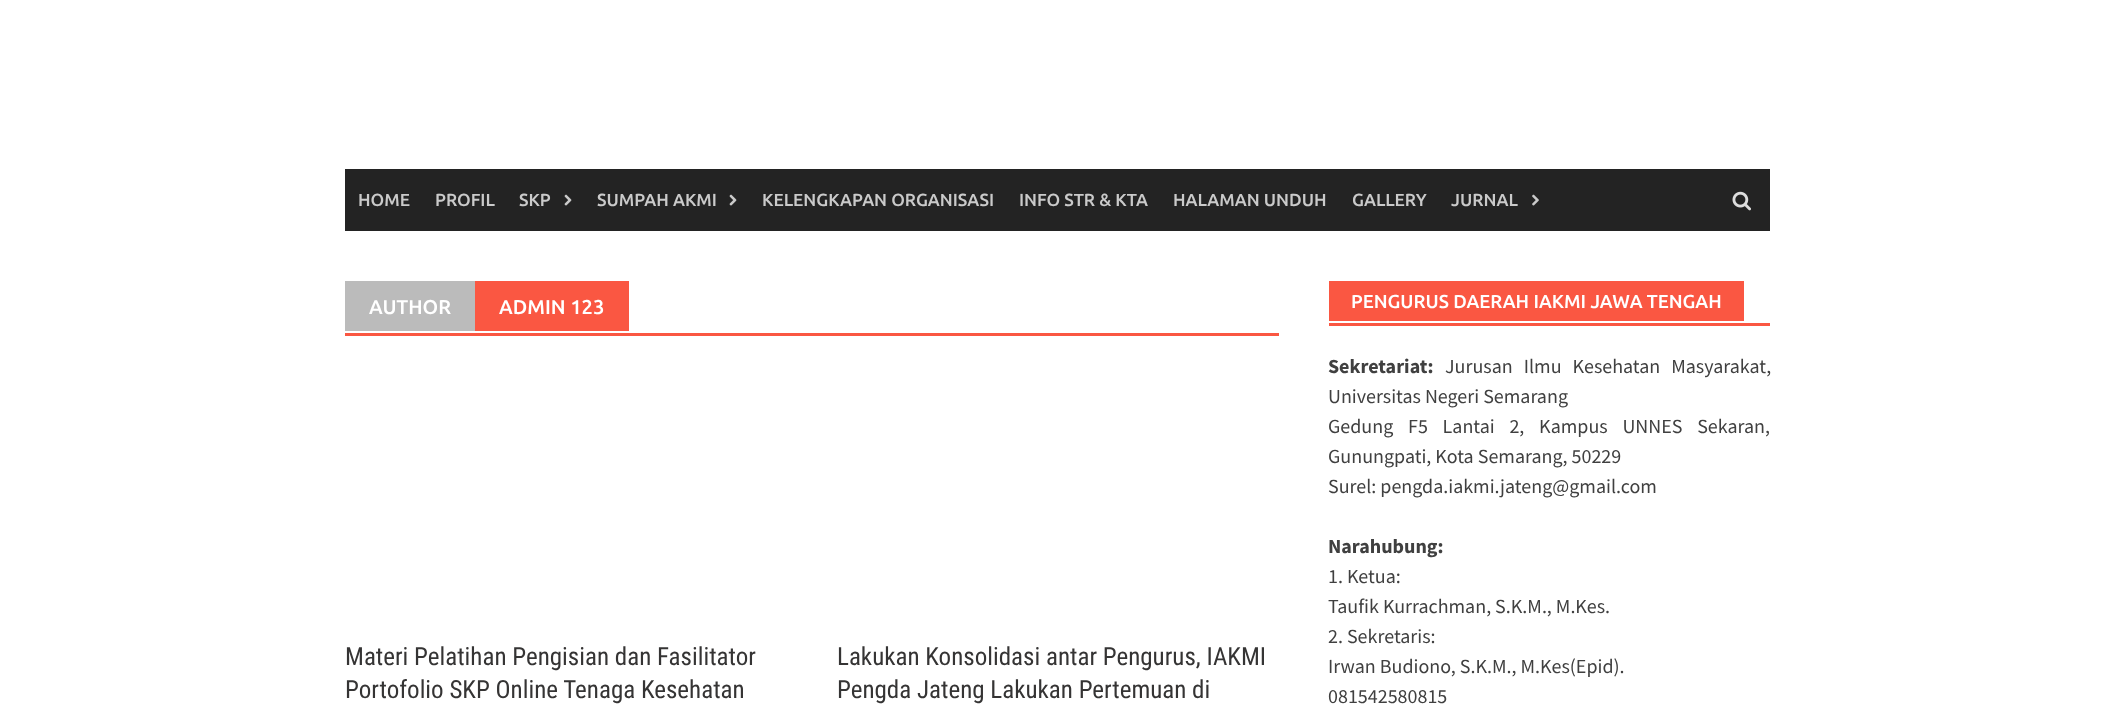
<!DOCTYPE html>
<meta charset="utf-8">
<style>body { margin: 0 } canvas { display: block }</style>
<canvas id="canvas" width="2114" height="718"></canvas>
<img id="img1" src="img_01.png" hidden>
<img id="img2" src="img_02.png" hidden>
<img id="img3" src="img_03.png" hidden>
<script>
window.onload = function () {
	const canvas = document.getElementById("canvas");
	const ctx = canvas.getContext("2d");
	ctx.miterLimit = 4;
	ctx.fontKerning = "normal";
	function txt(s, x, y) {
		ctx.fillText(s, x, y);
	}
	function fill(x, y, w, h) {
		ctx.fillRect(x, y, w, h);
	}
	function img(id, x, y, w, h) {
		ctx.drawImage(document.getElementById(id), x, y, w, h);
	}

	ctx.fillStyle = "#FFFFFF";
	fill(0, 0, 2114, 718);
	ctx.fillStyle = "#232323";
	fill(345, 169, 1425, 62);
	img("img1", 564, 194, 8, 12);
	img("img1", 729, 194, 8, 12);
	img("img2", 1532, 194, 7, 12);
	img("img3", 1732, 191, 19, 20);
	ctx.fillStyle = "#FA5742";
	fill(345, 333, 934, 3);
	fill(475, 281, 154, 50);
	ctx.fillStyle = "#BBBBBB";
	fill(345, 281, 130, 50);
	ctx.fillStyle = "#FA5742";
	fill(1329, 323, 441, 3);
	fill(1329, 281, 415, 40);
	ctx.font = "500 17.5px Ubuntu";
	ctx.fillStyle = "#CACACA";
	txt("HOME", 358, 206);
	txt("PROFIL", 435, 206);
	txt("SKP", 519, 206);
	txt("SUMPAH AKMI", 597, 206);
	txt("KELENGKAPAN ORGANISASI", 762, 206);
	txt("INFO STR & KTA", 1019, 206);
	txt("HALAMAN UNDUH", 1173, 206);
	txt("GALLERY", 1352, 206);
	txt("JURNAL", 1451, 206);
	ctx.font = "500 20px Ubuntu";
	ctx.fillStyle = "#FFFFFF";
	txt("AUTHOR", 369, 314);
	txt("ADMIN 123", 499, 314);
	ctx.font = "25px Roboto Condensed";
	ctx.fillStyle = "#353434";
	txt("Materi Pelatihan Pengisian dan Fasilitator", 345, 665);
	txt("Portofolio SKP Online Tenaga Kesehatan", 345, 698);
	txt("Lakukan Konsolidasi antar Pengurus, IAKMI", 837, 665);
	txt("Pengda Jateng Lakukan Pertemuan di", 837, 698);
	ctx.font = "500 18.75px Ubuntu";
	ctx.fillStyle = "#FFFFFF";
	txt("PENGURUS DAERAH IAKMI JAWA TENGAH", 1351, 308);
	ctx.font = "bold 20px Source Sans Pro";
	ctx.fillStyle = "#404040";
	txt("Sekretariat:", 1328, 373);
	ctx.wordSpacing = "7px";
	ctx.font = "20px Source Sans Pro";
	txt("Jurusan Ilmu Kesehatan Masyarakat,", 1445, 373);
	ctx.wordSpacing = "0px";
	txt("Universitas Negeri Semarang", 1328, 403);
	ctx.wordSpacing = "10.75px";
	txt("Gedung F5 Lantai 2, Kampus UNNES Sekaran,", 1328, 433);
	ctx.wordSpacing = "0px";
	txt("Gunungpati, Kota Semarang, 50229", 1328, 463);
	txt("Surel: pengda.iakmi.jateng@gmail.com", 1328, 493);
	ctx.font = "bold 20px Source Sans Pro";
	txt("Narahubung:", 1328, 553);
	ctx.font = "20px Source Sans Pro";
	txt("1. Ketua:", 1328, 583);
	txt("Taufik Kurrachman, S.K.M., M.Kes.", 1328, 613);
	txt("2. Sekretaris:", 1328, 643);
	txt("Irwan Budiono, S.K.M., M.Kes(Epid).", 1328, 673);
	txt("081542580815", 1328, 703);
};
</script>
